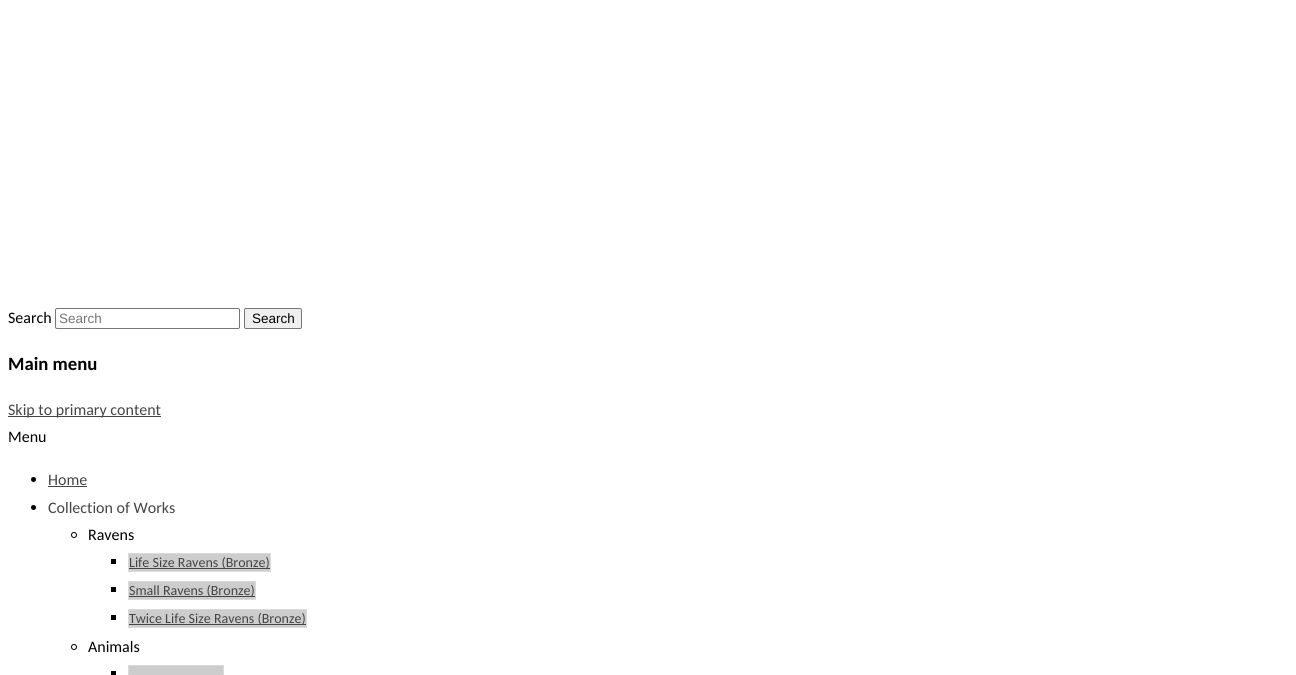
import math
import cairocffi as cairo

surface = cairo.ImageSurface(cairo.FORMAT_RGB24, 1296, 675)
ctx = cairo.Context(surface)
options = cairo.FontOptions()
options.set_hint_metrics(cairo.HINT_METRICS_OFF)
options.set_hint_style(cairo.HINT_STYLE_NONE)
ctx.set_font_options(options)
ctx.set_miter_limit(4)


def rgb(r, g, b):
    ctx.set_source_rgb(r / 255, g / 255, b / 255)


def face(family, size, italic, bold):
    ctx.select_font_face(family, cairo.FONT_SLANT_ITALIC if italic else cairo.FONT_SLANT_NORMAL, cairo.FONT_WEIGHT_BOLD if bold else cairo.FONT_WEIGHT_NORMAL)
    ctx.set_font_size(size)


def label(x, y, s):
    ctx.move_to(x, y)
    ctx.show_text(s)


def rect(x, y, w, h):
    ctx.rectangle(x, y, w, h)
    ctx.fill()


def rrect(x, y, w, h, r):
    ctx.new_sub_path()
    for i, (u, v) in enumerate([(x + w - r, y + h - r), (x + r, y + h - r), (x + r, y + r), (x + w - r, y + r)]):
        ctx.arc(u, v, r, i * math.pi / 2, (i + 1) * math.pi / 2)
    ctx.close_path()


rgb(255, 255, 255)
ctx.paint()
face('Carlito', 16, 0, 0)
rgb(0, 0, 0)
label(8, 323, 'Search')
rrect(55.5, 308.5, 184, 20, 1.5)
rgb(118, 118, 118)
ctx.set_line_width(1)
ctx.stroke()
face('Liberation Sans', 13.5, 0, 0)
rgb(117, 117, 117)
label(59, 323, 'Search')
rgb(239, 239, 239)
rrect(244.5, 308.5, 57, 20, 1.5)
ctx.fill_preserve()
rgb(118, 118, 118)
ctx.stroke()
rgb(0, 0, 0)
label(252, 323, 'Search')
face('Carlito', 18.75, 0, 1)
label(8, 370, 'Main menu')
rgb(69, 69, 69)
rect(8, 416, 153, 1)
face('Carlito', 16, 0, 0)
label(8, 415, 'Skip to primary content')
rgb(0, 0, 0)
label(8, 442, 'Menu')
ctx.new_path()
ctx.arc(33.5, 479.5, 2.5, 0, 2 * math.pi)
ctx.fill()
rgb(69, 69, 69)
label(48, 485, 'Home')
rect(48, 486, 39, 1)
rgb(0, 0, 0)
ctx.new_path()
ctx.arc(33.5, 507.5, 2.5, 0, 2 * math.pi)
ctx.fill()
rgb(69, 69, 69)
label(48, 513, 'Collection of Works')
ctx.new_path()
ctx.arc(74, 535, 2.5, 0, 2 * math.pi)
rgb(0, 0, 0)
ctx.stroke()
label(88, 540, 'Ravens')
rect(111, 559, 5, 5)
rgb(205, 205, 205)
ctx.rectangle(128.5, 553.5, 142, 18)
ctx.fill_preserve()
rgb(218, 218, 218)
ctx.stroke()
rgb(69, 69, 69)
rect(129, 568, 141, 1)
face('Carlito', 14, 0, 0)
label(129, 567, 'Life Size Ravens (Bronze)')
rgb(0, 0, 0)
rect(111, 587, 5, 5)
rgb(205, 205, 205)
ctx.rectangle(128.5, 581.5, 127, 18)
ctx.fill_preserve()
rgb(218, 218, 218)
ctx.stroke()
rgb(69, 69, 69)
rect(129, 596, 126, 1)
label(129, 595, 'Small Ravens (Bronze)')
rgb(0, 0, 0)
rect(111, 615, 5, 5)
rgb(205, 205, 205)
ctx.rectangle(128.5, 609.5, 178, 18)
ctx.fill_preserve()
rgb(218, 218, 218)
ctx.stroke()
rgb(69, 69, 69)
rect(129, 624, 177, 1)
label(129, 623, 'Twice Life Size Ravens (Bronze)')
ctx.new_path()
ctx.arc(74, 647, 2.5, 0, 2 * math.pi)
rgb(0, 0, 0)
ctx.stroke()
face('Carlito', 16, 0, 0)
label(88, 652, 'Animals')
rect(111, 671, 5, 4)
rgb(205, 205, 205)
ctx.rectangle(128.5, 665.5, 95, 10)
ctx.fill_preserve()
rgb(218, 218, 218)
ctx.stroke()
surface.write_to_png('render.png')
